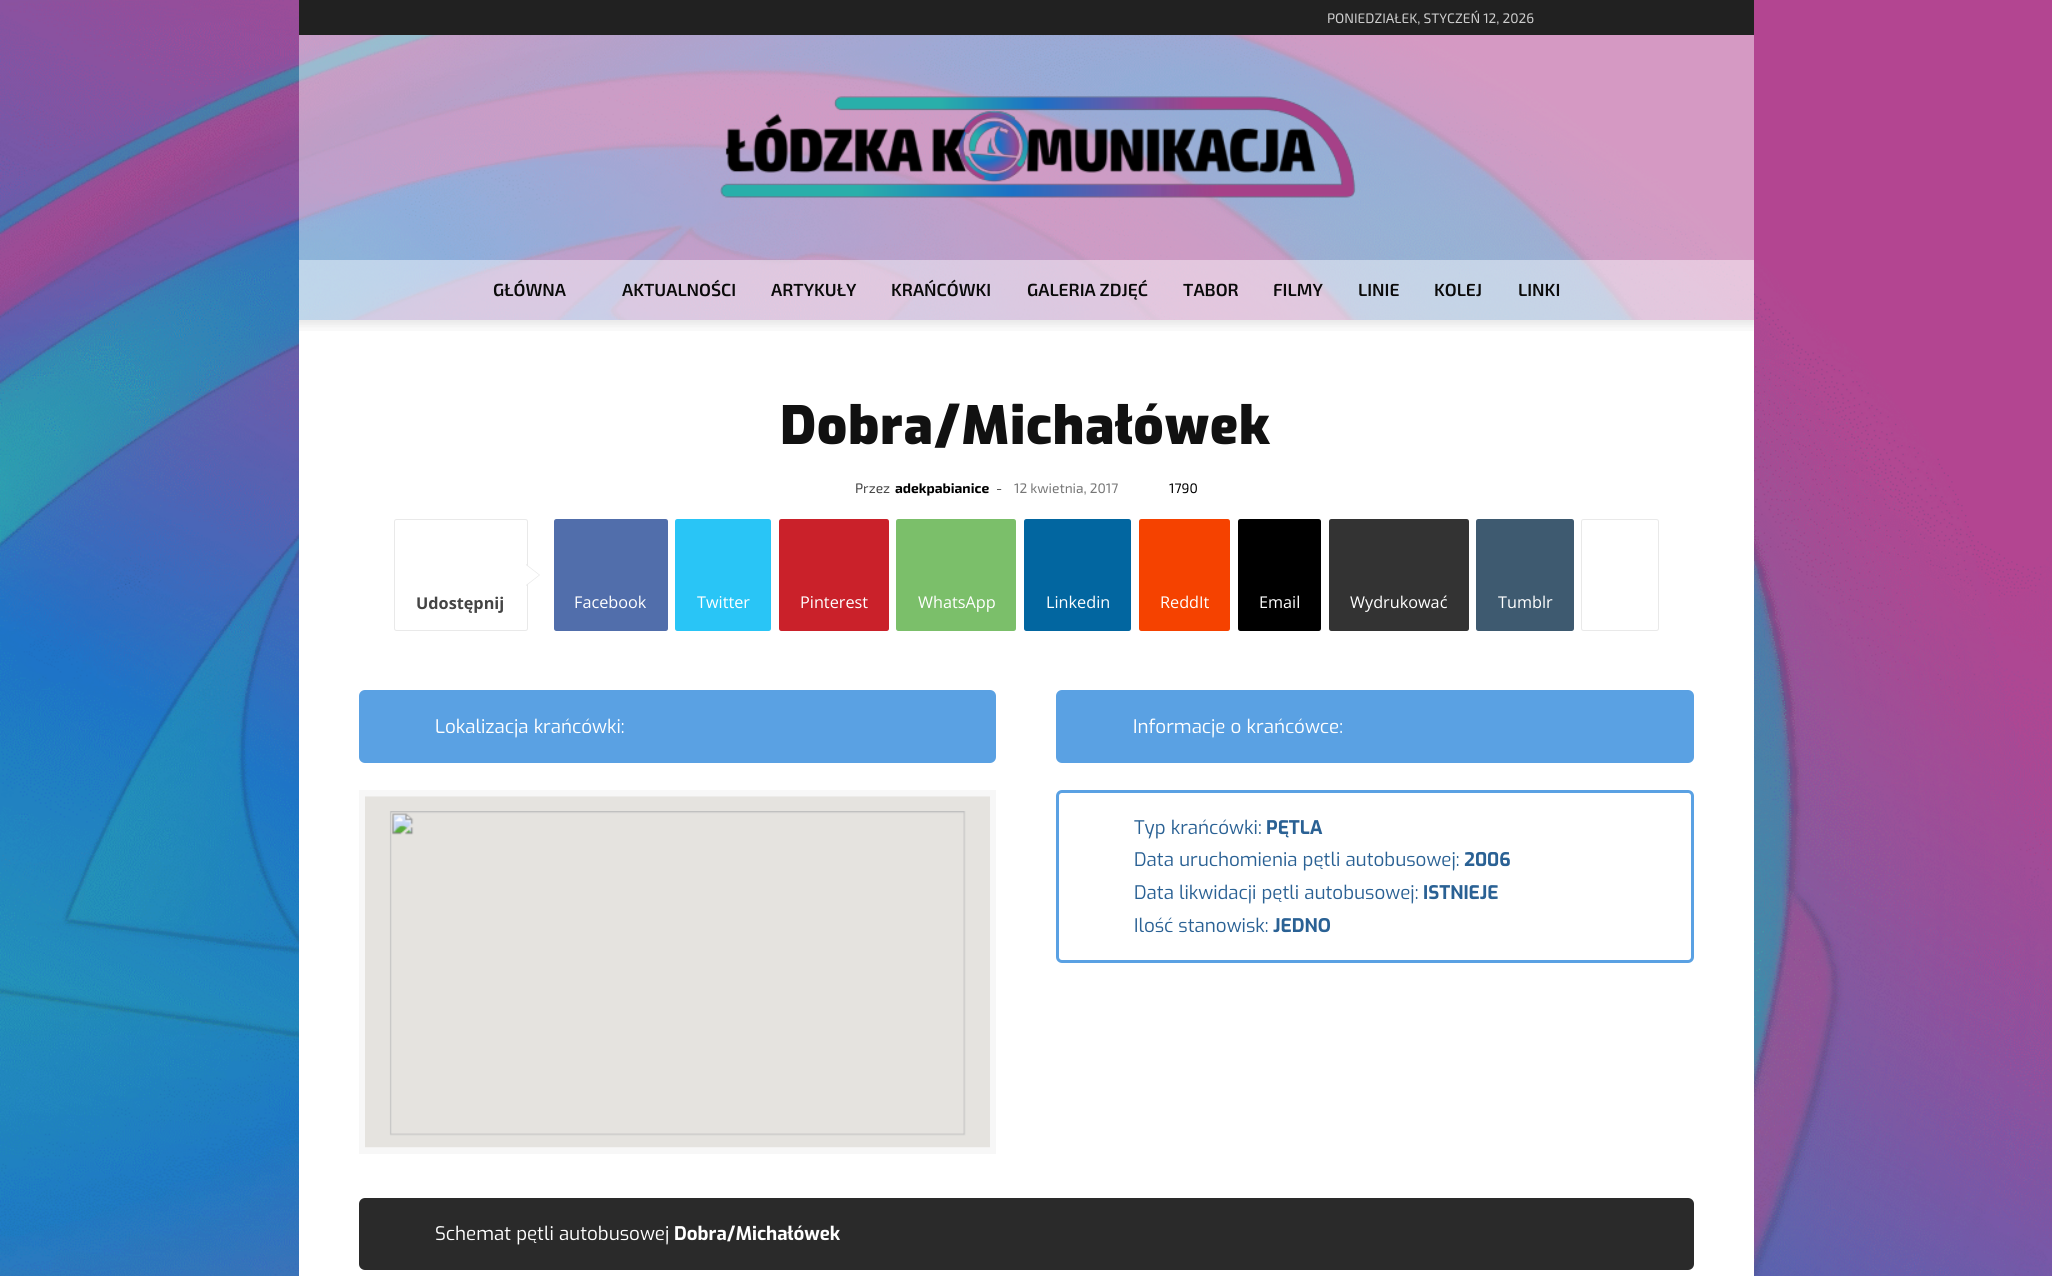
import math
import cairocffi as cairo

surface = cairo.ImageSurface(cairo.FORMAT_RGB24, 2052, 1276)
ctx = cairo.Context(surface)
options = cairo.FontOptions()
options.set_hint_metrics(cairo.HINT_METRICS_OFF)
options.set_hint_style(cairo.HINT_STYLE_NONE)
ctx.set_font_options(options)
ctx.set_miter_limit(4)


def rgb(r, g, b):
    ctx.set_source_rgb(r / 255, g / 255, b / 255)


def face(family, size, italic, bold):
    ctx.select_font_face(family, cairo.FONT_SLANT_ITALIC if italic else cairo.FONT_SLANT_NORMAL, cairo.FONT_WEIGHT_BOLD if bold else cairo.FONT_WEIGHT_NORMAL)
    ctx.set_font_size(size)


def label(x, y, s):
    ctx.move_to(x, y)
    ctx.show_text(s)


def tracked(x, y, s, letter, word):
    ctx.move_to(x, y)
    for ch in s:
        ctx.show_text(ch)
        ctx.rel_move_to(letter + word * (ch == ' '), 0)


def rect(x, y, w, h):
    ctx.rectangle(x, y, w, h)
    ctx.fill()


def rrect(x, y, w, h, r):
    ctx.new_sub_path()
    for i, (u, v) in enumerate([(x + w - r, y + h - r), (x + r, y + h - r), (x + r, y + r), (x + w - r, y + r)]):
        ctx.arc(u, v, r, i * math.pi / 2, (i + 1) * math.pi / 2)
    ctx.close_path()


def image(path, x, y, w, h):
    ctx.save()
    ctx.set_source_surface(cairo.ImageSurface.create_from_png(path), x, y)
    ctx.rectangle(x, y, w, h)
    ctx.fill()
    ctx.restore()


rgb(255, 255, 255)
ctx.paint()
image('image0.png', 0, 0, 2052, 1276)
rgb(33, 33, 33)
rect(299, 0, 1455, 35)
face('Exo 2', 13.75, 0, 0)
rgb(206, 206, 206)
label(1327, 23, 'PONIEDZIAŁEK, STYCZEŃ 12, 2026')
ctx.set_source_rgba(1, 1, 1, 0.45)
rect(299, 35, 1455, 225)
image('image1.png', 720, 96, 636, 102)
ctx.set_source_rgba(1, 1, 1, 0.69)
rect(299, 260, 1455, 60)
face('Exo 2 SemiBold', 17.5, 0, 0)
rgb(10, 10, 10)
label(493, 296, 'GŁÓWNA')
label(622, 296, 'AKTUALNOŚCI')
label(771, 296, 'ARTYKUŁY')
label(891, 296, 'KRAŃCÓWKI')
label(1027, 296, 'GALERIA ZDJĘĆ')
label(1183, 296, 'TABOR')
label(1273, 296, 'FILMY')
label(1358, 296, 'LINIE')
label(1434, 296, 'KOLEJ')
label(1518, 296, 'LINKI')
rgb(255, 255, 255)
rect(299, 320, 1455, 956)
image('image2.png', 299, 320, 1455, 11)
face('Exo Black', 52.5, 0, 0)
rgb(17, 17, 17)
tracked(780, 444, 'Dobra/Michałówek', 1, 0)
face('Exo 2', 13.75, 0, 0)
rgb(68, 68, 68)
label(855, 493, 'Przez')
face('Exo 2', 13.75, 0, 1)
rgb(0, 0, 0)
label(895, 493, 'adekpabianice')
face('Exo 2', 13.75, 0, 0)
rgb(68, 68, 68)
label(996, 493, '-')
rgb(118, 118, 118)
label(1014, 493, '12 kwietnia, 2017')
rgb(0, 0, 0)
label(1169, 493, '1790')
rrect(394.5, 519.5, 133, 111, 2)
rgb(233, 233, 233)
ctx.set_line_width(1)
ctx.stroke()
ctx.new_path()
ctx.move_to(526, 586)
ctx.line_to(526, 564)
ctx.line_to(540, 575)
ctx.close_path()
ctx.fill()
rgb(255, 255, 255)
ctx.new_path()
ctx.move_to(526, 585)
ctx.line_to(526, 565)
ctx.line_to(539, 575)
ctx.close_path()
ctx.fill()
face('Open Sans', 16.25, 0, 1)
rgb(68, 68, 68)
label(416, 609, 'Udostępnij')
rgb(81, 110, 171)
ctx.new_path()
ctx.move_to(556.5, 519)
ctx.line_to(665.5, 519)
ctx.curve_to(667, 519, 668, 520, 668, 521.5)
ctx.line_to(668, 594)
ctx.line_to(554, 594)
ctx.line_to(554, 521.5)
ctx.curve_to(554, 520, 555, 519, 556.5, 519)
ctx.close_path()
ctx.fill()
ctx.new_path()
ctx.move_to(554, 594)
ctx.line_to(668, 594)
ctx.line_to(668, 628.5)
ctx.curve_to(668, 630, 667, 631, 665.5, 631)
ctx.line_to(556.5, 631)
ctx.curve_to(555, 631, 554, 630, 554, 628.5)
ctx.close_path()
ctx.fill()
face('Open Sans', 16.25, 0, 0)
rgb(255, 255, 255)
label(574, 608, 'Facebook')
rgb(41, 197, 246)
ctx.new_path()
ctx.move_to(677.5, 519)
ctx.line_to(768.5, 519)
ctx.curve_to(770, 519, 771, 520, 771, 521.5)
ctx.line_to(771, 594)
ctx.line_to(675, 594)
ctx.line_to(675, 521.5)
ctx.curve_to(675, 520, 676, 519, 677.5, 519)
ctx.close_path()
ctx.fill()
ctx.new_path()
ctx.move_to(675, 594)
ctx.line_to(771, 594)
ctx.line_to(771, 628.5)
ctx.curve_to(771, 630, 770, 631, 768.5, 631)
ctx.line_to(677.5, 631)
ctx.curve_to(676, 631, 675, 630, 675, 628.5)
ctx.close_path()
ctx.fill()
rgb(255, 255, 255)
label(697, 608, 'Twitter')
rgb(202, 33, 42)
ctx.new_path()
ctx.move_to(781.5, 519)
ctx.line_to(886.5, 519)
ctx.curve_to(888, 519, 889, 520, 889, 521.5)
ctx.line_to(889, 594)
ctx.line_to(779, 594)
ctx.line_to(779, 521.5)
ctx.curve_to(779, 520, 780, 519, 781.5, 519)
ctx.close_path()
ctx.fill()
ctx.new_path()
ctx.move_to(779, 594)
ctx.line_to(889, 594)
ctx.line_to(889, 628.5)
ctx.curve_to(889, 630, 888, 631, 886.5, 631)
ctx.line_to(781.5, 631)
ctx.curve_to(780, 631, 779, 630, 779, 628.5)
ctx.close_path()
ctx.fill()
rgb(255, 255, 255)
label(800, 608, 'Pinterest')
rgb(123, 191, 106)
ctx.new_path()
ctx.move_to(898.5, 519)
ctx.line_to(1013.5, 519)
ctx.curve_to(1015, 519, 1016, 520, 1016, 521.5)
ctx.line_to(1016, 594)
ctx.line_to(896, 594)
ctx.line_to(896, 521.5)
ctx.curve_to(896, 520, 897, 519, 898.5, 519)
ctx.close_path()
ctx.fill()
ctx.new_path()
ctx.move_to(896, 594)
ctx.line_to(1016, 594)
ctx.line_to(1016, 628.5)
ctx.curve_to(1016, 630, 1015, 631, 1013.5, 631)
ctx.line_to(898.5, 631)
ctx.curve_to(897, 631, 896, 630, 896, 628.5)
ctx.close_path()
ctx.fill()
rgb(255, 255, 255)
label(918, 608, 'WhatsApp')
rgb(2, 102, 160)
ctx.new_path()
ctx.move_to(1026.5, 519)
ctx.line_to(1128.5, 519)
ctx.curve_to(1130, 519, 1131, 520, 1131, 521.5)
ctx.line_to(1131, 594)
ctx.line_to(1024, 594)
ctx.line_to(1024, 521.5)
ctx.curve_to(1024, 520, 1025, 519, 1026.5, 519)
ctx.close_path()
ctx.fill()
ctx.new_path()
ctx.move_to(1024, 594)
ctx.line_to(1131, 594)
ctx.line_to(1131, 628.5)
ctx.curve_to(1131, 630, 1130, 631, 1128.5, 631)
ctx.line_to(1026.5, 631)
ctx.curve_to(1025, 631, 1024, 630, 1024, 628.5)
ctx.close_path()
ctx.fill()
rgb(255, 255, 255)
label(1046, 608, 'Linkedin')
rgb(245, 66, 0)
ctx.new_path()
ctx.move_to(1141.5, 519)
ctx.line_to(1227.5, 519)
ctx.curve_to(1229, 519, 1230, 520, 1230, 521.5)
ctx.line_to(1230, 594)
ctx.line_to(1139, 594)
ctx.line_to(1139, 521.5)
ctx.curve_to(1139, 520, 1140, 519, 1141.5, 519)
ctx.close_path()
ctx.fill()
ctx.new_path()
ctx.move_to(1139, 594)
ctx.line_to(1230, 594)
ctx.line_to(1230, 628.5)
ctx.curve_to(1230, 630, 1229, 631, 1227.5, 631)
ctx.line_to(1141.5, 631)
ctx.curve_to(1140, 631, 1139, 630, 1139, 628.5)
ctx.close_path()
ctx.fill()
rgb(255, 255, 255)
label(1160, 608, 'ReddIt')
rgb(0, 0, 0)
ctx.new_path()
ctx.move_to(1240.5, 519)
ctx.line_to(1318.5, 519)
ctx.curve_to(1320, 519, 1321, 520, 1321, 521.5)
ctx.line_to(1321, 594)
ctx.line_to(1238, 594)
ctx.line_to(1238, 521.5)
ctx.curve_to(1238, 520, 1239, 519, 1240.5, 519)
ctx.close_path()
ctx.fill()
ctx.new_path()
ctx.move_to(1238, 594)
ctx.line_to(1321, 594)
ctx.line_to(1321, 628.5)
ctx.curve_to(1321, 630, 1320, 631, 1318.5, 631)
ctx.line_to(1240.5, 631)
ctx.curve_to(1239, 631, 1238, 630, 1238, 628.5)
ctx.close_path()
ctx.fill()
rgb(255, 255, 255)
label(1259, 608, 'Email')
rgb(51, 51, 51)
ctx.new_path()
ctx.move_to(1331.5, 519)
ctx.line_to(1466.5, 519)
ctx.curve_to(1468, 519, 1469, 520, 1469, 521.5)
ctx.line_to(1469, 594)
ctx.line_to(1329, 594)
ctx.line_to(1329, 521.5)
ctx.curve_to(1329, 520, 1330, 519, 1331.5, 519)
ctx.close_path()
ctx.fill()
ctx.new_path()
ctx.move_to(1329, 594)
ctx.line_to(1469, 594)
ctx.line_to(1469, 628.5)
ctx.curve_to(1469, 630, 1468, 631, 1466.5, 631)
ctx.line_to(1331.5, 631)
ctx.curve_to(1330, 631, 1329, 630, 1329, 628.5)
ctx.close_path()
ctx.fill()
rgb(255, 255, 255)
label(1350, 608, 'Wydrukować')
rgb(62, 90, 112)
ctx.new_path()
ctx.move_to(1478.5, 519)
ctx.line_to(1571.5, 519)
ctx.curve_to(1573, 519, 1574, 520, 1574, 521.5)
ctx.line_to(1574, 594)
ctx.line_to(1476, 594)
ctx.line_to(1476, 521.5)
ctx.curve_to(1476, 520, 1477, 519, 1478.5, 519)
ctx.close_path()
ctx.fill()
ctx.new_path()
ctx.move_to(1476, 594)
ctx.line_to(1574, 594)
ctx.line_to(1574, 628.5)
ctx.curve_to(1574, 630, 1573, 631, 1571.5, 631)
ctx.line_to(1478.5, 631)
ctx.curve_to(1477, 631, 1476, 630, 1476, 628.5)
ctx.close_path()
ctx.fill()
rgb(255, 255, 255)
label(1498, 608, 'Tumblr')
rrect(1581.5, 519.5, 77, 111, 2)
rgb(233, 233, 233)
ctx.stroke()
rgb(90, 161, 227)
rrect(359, 690, 637, 73, 6)
ctx.fill()
face('Exo', 18.75, 0, 0)
rgb(255, 255, 255)
label(435, 733, 'Lokalizacja krańcówki:')
rgb(247, 247, 247)
rect(359, 790, 637, 364)
image('image3.png', 365, 796, 625, 352)
rgb(90, 161, 227)
rrect(1056, 690, 638, 73, 6)
ctx.fill()
rgb(255, 255, 255)
label(1133, 733, 'Informacje o krańcówce:')
rrect(1057.5, 791.5, 635, 170, 4.5)
rgb(90, 161, 227)
ctx.set_line_width(3)
ctx.stroke()
rgb(42, 97, 148)
label(1134, 834, 'Typ krańcówki:')
face('Exo', 18.75, 0, 1)
label(1266, 834, 'PĘTLA')
face('Exo', 18.75, 0, 0)
label(1134, 866, 'Data uruchomienia pętli autobusowej:')
face('Exo', 18.75, 0, 1)
label(1464, 866, '2006')
face('Exo', 18.75, 0, 0)
label(1134, 899, 'Data likwidacji pętli autobusowej:')
face('Exo', 18.75, 0, 1)
label(1423, 899, 'ISTNIEJE')
face('Exo', 18.75, 0, 0)
label(1134, 932, 'Ilość stanowisk:')
face('Exo', 18.75, 0, 1)
label(1273, 932, 'JEDNO')
rgb(42, 42, 42)
rrect(359, 1198, 1335, 72, 6)
ctx.fill()
face('Exo', 18.75, 0, 0)
rgb(255, 255, 255)
label(435, 1240, 'Schemat pętli autobusowej')
face('Exo', 18.75, 0, 1)
label(674, 1240, 'Dobra/Michałówek')
surface.write_to_png('render.png')
